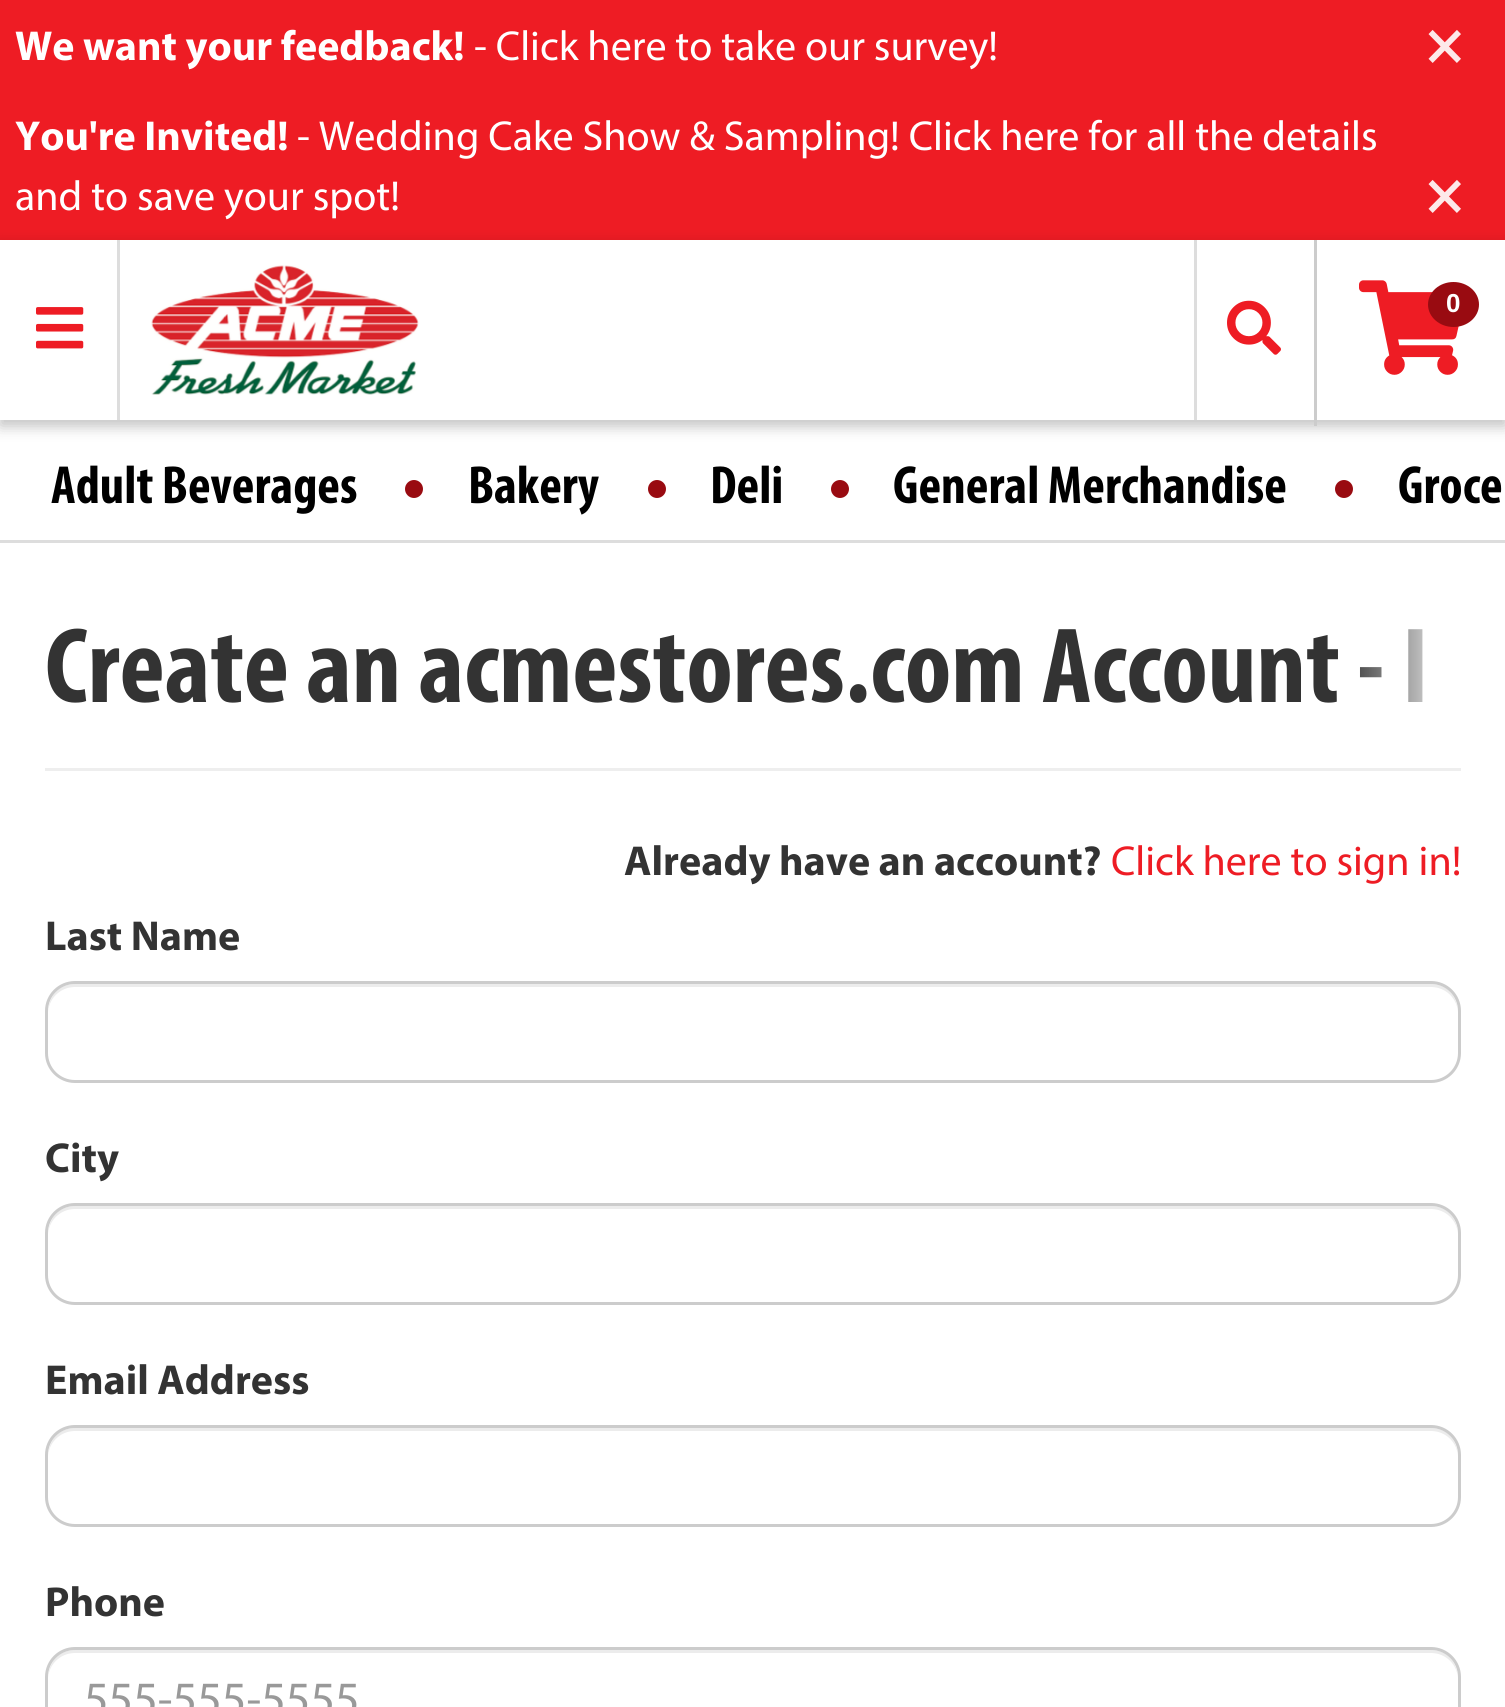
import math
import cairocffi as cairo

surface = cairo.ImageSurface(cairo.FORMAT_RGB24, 1505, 1707)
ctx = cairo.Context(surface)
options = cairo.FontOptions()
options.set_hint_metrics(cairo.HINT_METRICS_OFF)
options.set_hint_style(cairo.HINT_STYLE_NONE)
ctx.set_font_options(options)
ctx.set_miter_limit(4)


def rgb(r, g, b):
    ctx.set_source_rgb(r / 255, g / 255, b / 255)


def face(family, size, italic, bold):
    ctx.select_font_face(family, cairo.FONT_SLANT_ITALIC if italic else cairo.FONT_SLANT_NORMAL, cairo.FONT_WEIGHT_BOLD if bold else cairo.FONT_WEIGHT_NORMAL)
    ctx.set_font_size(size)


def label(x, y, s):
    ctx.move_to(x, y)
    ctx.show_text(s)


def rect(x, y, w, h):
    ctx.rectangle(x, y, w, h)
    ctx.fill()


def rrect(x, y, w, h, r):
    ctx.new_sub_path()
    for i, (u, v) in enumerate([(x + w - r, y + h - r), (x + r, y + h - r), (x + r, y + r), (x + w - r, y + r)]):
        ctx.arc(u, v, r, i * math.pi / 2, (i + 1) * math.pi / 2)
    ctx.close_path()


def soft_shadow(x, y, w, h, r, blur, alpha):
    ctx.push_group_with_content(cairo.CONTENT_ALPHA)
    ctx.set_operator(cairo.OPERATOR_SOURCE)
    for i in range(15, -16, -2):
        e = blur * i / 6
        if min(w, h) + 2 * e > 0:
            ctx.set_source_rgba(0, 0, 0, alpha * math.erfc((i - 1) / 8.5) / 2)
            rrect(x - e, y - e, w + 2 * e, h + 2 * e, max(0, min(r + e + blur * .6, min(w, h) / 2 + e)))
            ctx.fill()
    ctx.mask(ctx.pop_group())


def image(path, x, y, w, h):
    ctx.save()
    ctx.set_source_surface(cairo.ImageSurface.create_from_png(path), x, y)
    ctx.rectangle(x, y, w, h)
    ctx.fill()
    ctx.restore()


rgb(255, 255, 255)
ctx.paint()
rgb(238, 28, 36)
rect(0, 0, 1505, 240)
face('Myriad', 42, 0, 1)
rgb(255, 255, 255)
label(15, 60, 'We want your feedback!')
face('Myriad', 42, 0, 0)
label(474, 60, '- Click here to take our survey!')
face('Myriad', 63, 0, 1)
rgb(253, 232, 233)
label(1426, 63, '×')
face('Myriad', 42, 0, 1)
rgb(255, 255, 255)
label(15, 150, 'You\'re Invited!')
face('Myriad', 42, 0, 0)
label(297, 150, '- Wedding Cake Show & Sampling! Click here for all the details')
label(15, 210, 'and to save your spot!')
face('Myriad', 63, 0, 1)
rgb(253, 232, 233)
label(1426, 213, '×')
ctx.save()
ctx.set_fill_rule(cairo.FILL_RULE_EVEN_ODD)
ctx.new_path()
ctx.move_to(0, 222)
ctx.line_to(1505, 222)
ctx.line_to(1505, 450)
ctx.line_to(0, 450)
ctx.close_path()
ctx.move_to(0, 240)
ctx.line_to(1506, 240)
ctx.line_to(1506, 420)
ctx.line_to(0, 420)
ctx.close_path()
ctx.clip()
rgb(0, 0, 0)
soft_shadow(0, 246, 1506, 180, 0, 7.5, 0.25)
ctx.restore()
rgb(221, 221, 221)
rect(117, 240, 3, 180)
image('image0.png', 36, 307, 48, 42)
image('image1.png', 151, 265, 268, 130)
rect(1194, 240, 3, 180)
image('image2.png', 1227, 300, 54, 55)
rgb(204, 204, 204)
rect(1314, 240, 3, 186)
image('image3.png', 1359, 280, 100, 95)
rgb(153, 11, 17)
ctx.new_path()
ctx.move_to(1453.5, 282)
ctx.curve_to(1467.5, 282, 1479, 292, 1479, 304.5)
ctx.curve_to(1479, 317, 1467.5, 327, 1453.5, 327)
ctx.curve_to(1439.5, 327, 1428, 317, 1428, 304.5)
ctx.curve_to(1428, 292, 1439.5, 282, 1453.5, 282)
ctx.close_path()
ctx.fill()
face('Liberation Sans', 26, 0, 1)
rgb(255, 255, 255)
label(1446, 312, '0')
face('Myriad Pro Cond', 54, 0, 1)
rgb(0, 0, 0)
label(51, 503, 'Adult Beverages')
rgb(153, 11, 17)
ctx.new_path()
ctx.arc(414, 489, 9, 0, 2 * math.pi)
ctx.fill()
rgb(0, 0, 0)
label(468, 503, 'Bakery')
rgb(153, 11, 17)
ctx.new_path()
ctx.arc(657, 489, 9, 0, 2 * math.pi)
ctx.fill()
rgb(0, 0, 0)
label(710, 503, 'Deli')
rgb(153, 11, 17)
ctx.new_path()
ctx.arc(840, 489, 9, 0, 2 * math.pi)
ctx.fill()
rgb(0, 0, 0)
label(893, 503, 'General Merchandise')
rgb(153, 11, 17)
ctx.new_path()
ctx.arc(1344, 489, 9, 0, 2 * math.pi)
ctx.fill()
rgb(0, 0, 0)
label(1398, 503, 'Groce')
rgb(221, 221, 221)
rect(0, 540, 1505, 3)
face('Myriad Pro Cond', 108, 0, 1)
rgb(51, 51, 51)
label(45, 702, 'Create an acmestores.com Account - I')
gradient = cairo.LinearGradient(1341, 663, 1461, 663)
gradient.add_color_stop_rgba(0, 1, 1, 1, 0)
gradient.add_color_stop_rgba(1, 1, 1, 1, 1)
ctx.set_source(gradient)
rect(1360, 629, 63, 73)
rgb(238, 238, 238)
rect(45, 768, 1416, 3)
face('Myriad', 42, 0, 1)
rgb(51, 51, 51)
label(624, 875, 'Already have an account?')
face('Myriad', 42, 0, 0)
rgb(238, 28, 36)
label(1111, 875, 'Click here to sign in!')
face('Myriad', 42, 0, 1)
rgb(51, 51, 51)
label(45, 950, 'Last Name')
rgb(236, 236, 236)
ctx.new_path()
ctx.move_to(75, 987)
ctx.line_to(1431, 987)
ctx.curve_to(1446, 987, 1458, 999, 1458, 1014)
ctx.curve_to(1458, 998, 1449, 984, 1431, 984)
ctx.line_to(75, 984)
ctx.curve_to(57, 984, 48, 998, 48, 1014)
ctx.curve_to(48, 999, 60, 987, 75, 987)
ctx.close_path()
ctx.fill()
rrect(46.5, 982.5, 1413, 99, 28.5)
rgb(204, 204, 204)
ctx.set_line_width(3)
ctx.stroke()
rgb(51, 51, 51)
label(45, 1172, 'City')
rgb(236, 236, 236)
ctx.new_path()
ctx.move_to(75, 1209)
ctx.line_to(1431, 1209)
ctx.curve_to(1446, 1209, 1458, 1221, 1458, 1236)
ctx.curve_to(1458, 1220, 1449, 1206, 1431, 1206)
ctx.line_to(75, 1206)
ctx.curve_to(57, 1206, 48, 1220, 48, 1236)
ctx.curve_to(48, 1221, 60, 1209, 75, 1209)
ctx.close_path()
ctx.fill()
rrect(46.5, 1204.5, 1413, 99, 28.5)
rgb(204, 204, 204)
ctx.stroke()
rgb(51, 51, 51)
label(45, 1394, 'Email Address')
rgb(236, 236, 236)
ctx.new_path()
ctx.move_to(75, 1431)
ctx.line_to(1431, 1431)
ctx.curve_to(1446, 1431, 1458, 1443, 1458, 1458)
ctx.curve_to(1458, 1442, 1449, 1428, 1431, 1428)
ctx.line_to(75, 1428)
ctx.curve_to(57, 1428, 48, 1442, 48, 1458)
ctx.curve_to(48, 1443, 60, 1431, 75, 1431)
ctx.close_path()
ctx.fill()
rrect(46.5, 1426.5, 1413, 99, 28.5)
rgb(204, 204, 204)
ctx.stroke()
rgb(51, 51, 51)
label(45, 1616, 'Phone')
rgb(236, 236, 236)
ctx.new_path()
ctx.move_to(75, 1653)
ctx.line_to(1431, 1653)
ctx.curve_to(1446, 1653, 1458, 1665, 1458, 1680)
ctx.curve_to(1458, 1664, 1449, 1650, 1431, 1650)
ctx.line_to(75, 1650)
ctx.curve_to(57, 1650, 48, 1664, 48, 1680)
ctx.curve_to(48, 1665, 60, 1653, 75, 1653)
ctx.close_path()
ctx.fill()
rrect(46.5, 1648.5, 1413, 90, 28.5)
rgb(204, 204, 204)
ctx.stroke()
face('Myriad', 48, 0, 0)
rgb(153, 153, 153)
label(84, 1715, '555-555-5555')
surface.write_to_png('render.png')
